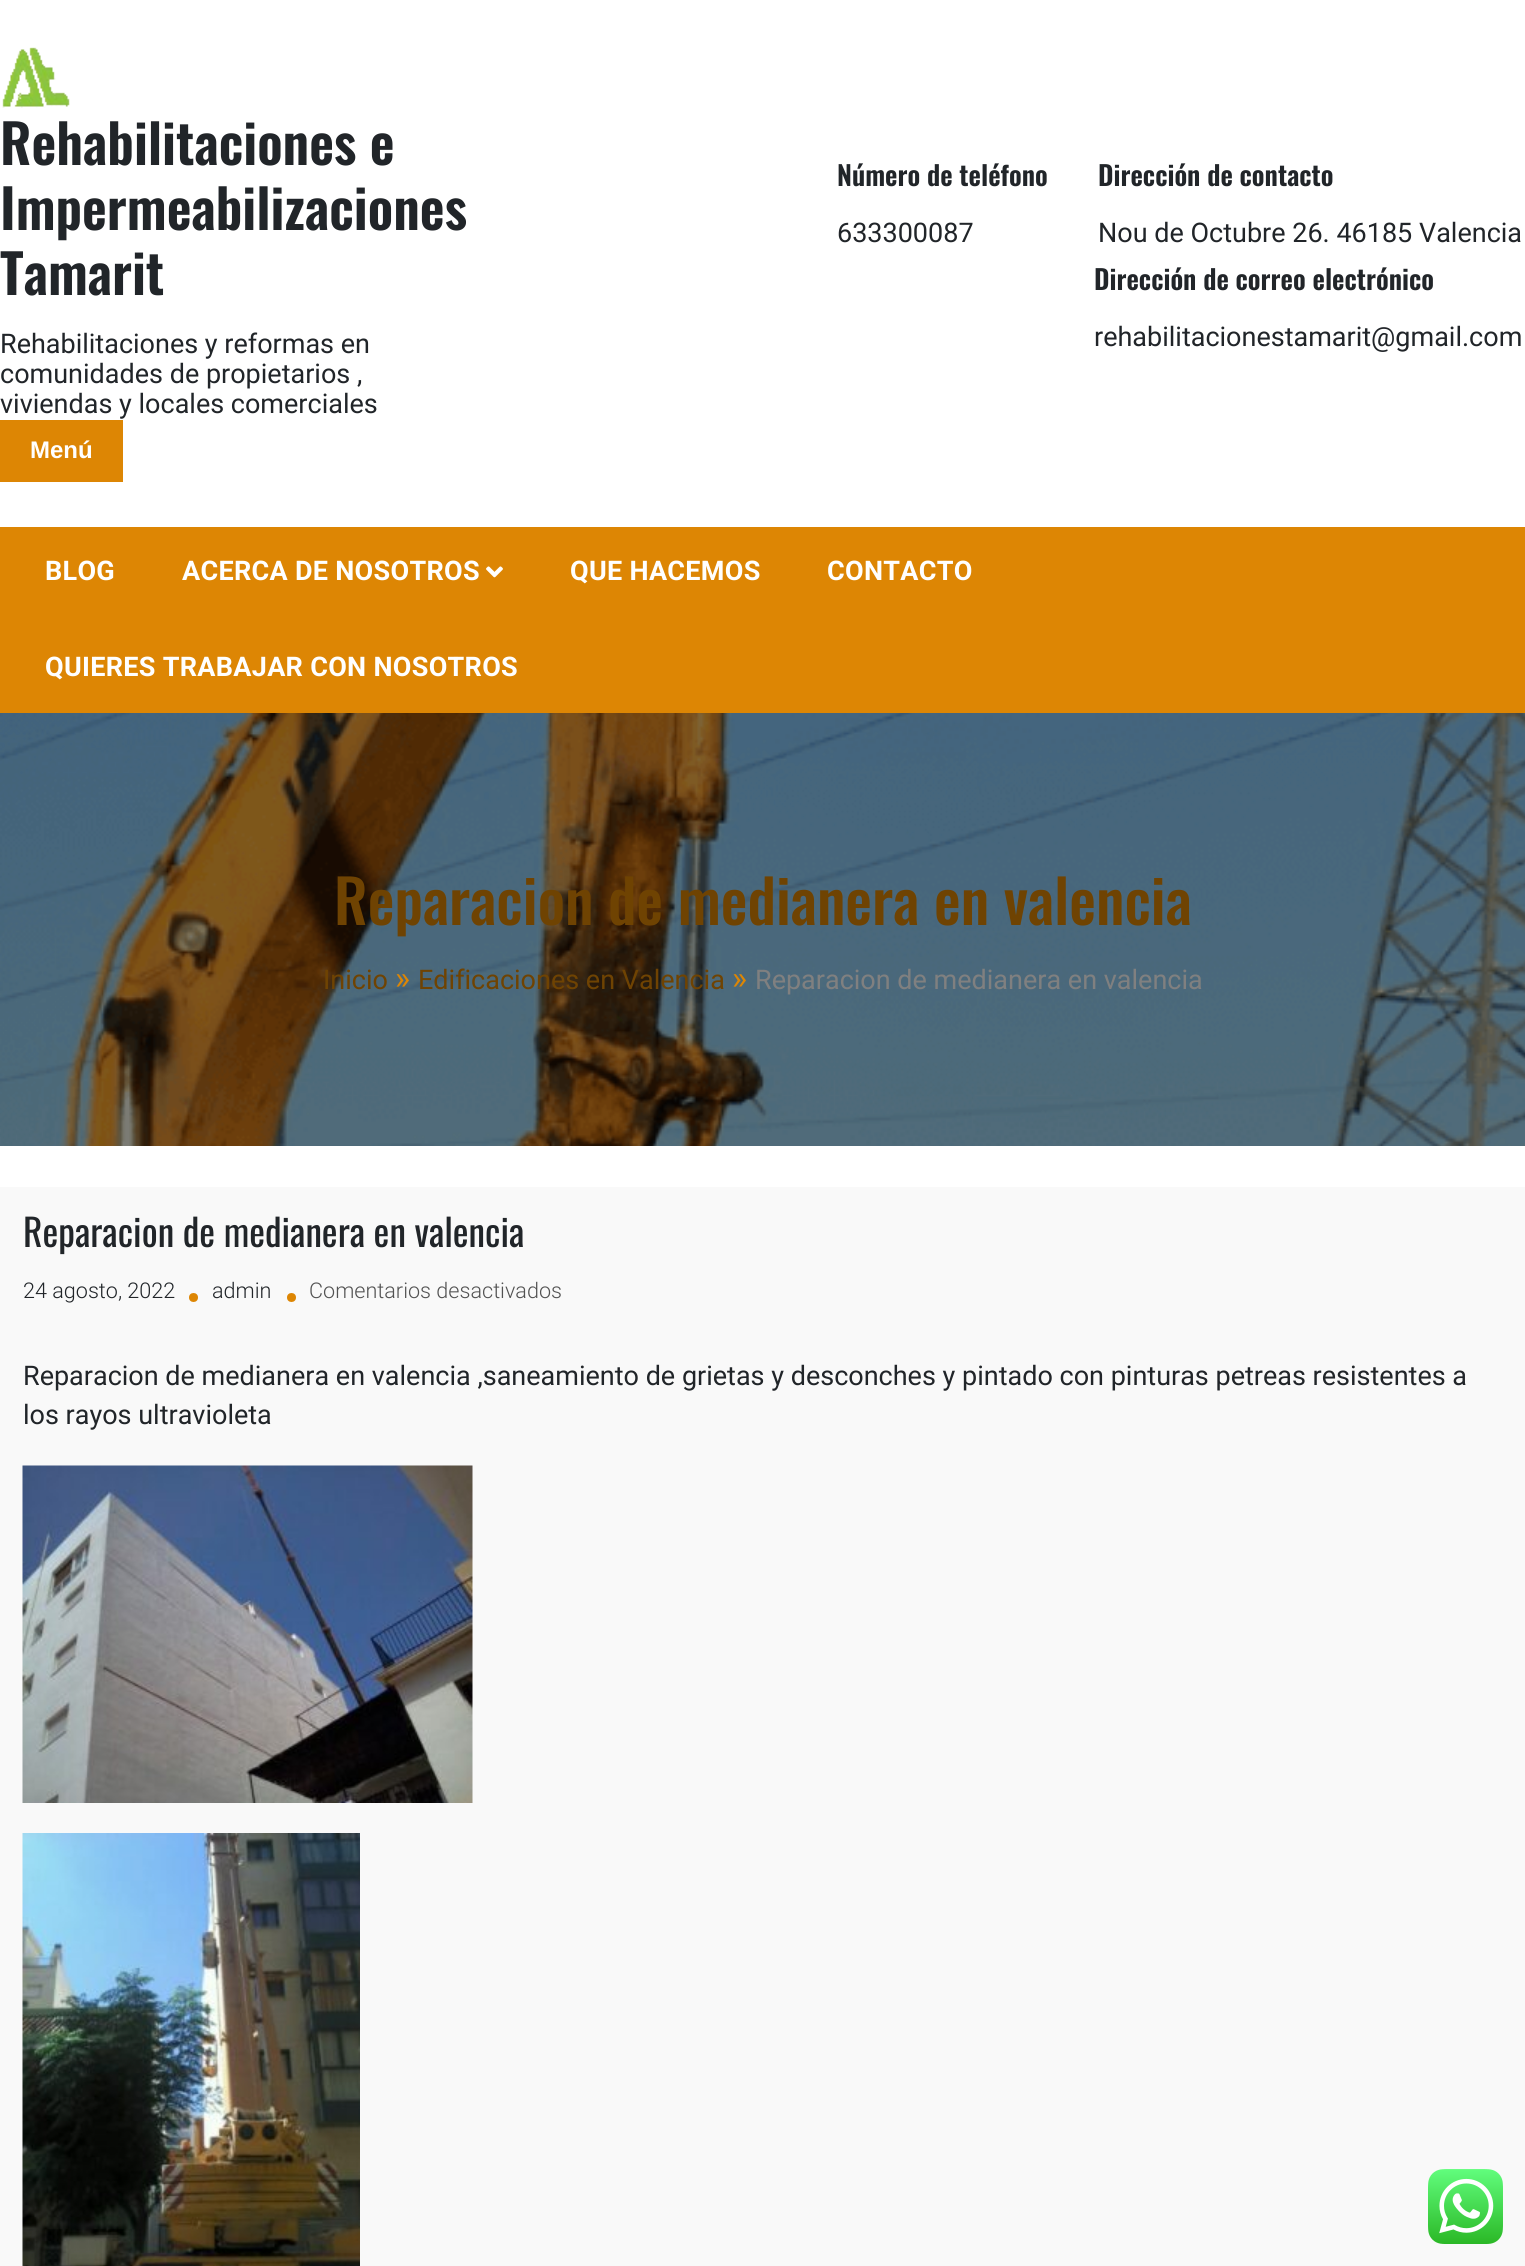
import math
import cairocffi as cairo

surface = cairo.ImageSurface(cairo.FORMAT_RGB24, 1525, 2266)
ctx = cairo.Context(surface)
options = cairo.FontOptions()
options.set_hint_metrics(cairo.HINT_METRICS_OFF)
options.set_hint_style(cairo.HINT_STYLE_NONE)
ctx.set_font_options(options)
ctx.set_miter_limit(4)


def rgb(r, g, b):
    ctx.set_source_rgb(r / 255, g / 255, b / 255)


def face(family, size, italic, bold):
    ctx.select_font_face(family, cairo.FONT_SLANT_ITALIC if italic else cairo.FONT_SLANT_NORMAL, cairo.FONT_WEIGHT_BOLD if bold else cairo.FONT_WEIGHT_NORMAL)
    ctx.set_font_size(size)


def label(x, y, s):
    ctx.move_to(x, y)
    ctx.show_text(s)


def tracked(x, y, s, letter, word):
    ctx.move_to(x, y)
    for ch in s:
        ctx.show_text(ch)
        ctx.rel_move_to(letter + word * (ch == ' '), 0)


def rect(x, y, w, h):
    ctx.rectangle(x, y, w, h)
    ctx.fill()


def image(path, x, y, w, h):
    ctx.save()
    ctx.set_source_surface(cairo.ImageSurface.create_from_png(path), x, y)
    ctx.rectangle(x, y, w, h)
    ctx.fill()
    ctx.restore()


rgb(255, 255, 255)
ctx.paint()
image('image0.png', 2, 47, 68, 61)
face('Oswald SemiBold', 54, 0, 0)
rgb(33, 37, 41)
label(0, 165, 'Rehabilitaciones e')
label(0, 230, 'Impermeabilizaciones')
label(0, 295, 'Tamarit')
face('Roboto', 27, 0, 0)
label(0, 353, 'Rehabilitaciones y reformas en')
label(0, 383, 'comunidades de propietarios ,')
label(0, 413, 'viviendas y locales comerciales')
rgb(221, 134, 4)
rect(0, 420, 123, 62)
face('Liberation Sans', 24, 0, 1)
rgb(255, 255, 255)
label(30, 458, 'Menú')
face('Oswald SemiBold', 27, 0, 0)
rgb(33, 37, 41)
label(837, 186, 'Número de teléfono')
face('Roboto', 27, 0, 0)
label(837, 242, '633300087')
face('Oswald SemiBold', 27, 0, 0)
label(1098, 186, 'Dirección de contacto')
face('Roboto', 27, 0, 0)
label(1098, 242, 'Nou de Octubre 26. 46185 Valencia')
face('Oswald SemiBold', 27, 0, 0)
label(1094, 290, 'Dirección de correo electrónico')
face('Roboto', 27, 0, 0)
label(1094, 346, 'rehabilitacionestamarit@gmail.com')
rgb(221, 134, 4)
rect(0, 527, 1525, 186)
face('Roboto', 27, 0, 1)
rgb(255, 255, 255)
tracked(45, 580, 'BLOG', 0.3, 0)
tracked(182, 580, 'ACERCA DE NOSOTROS', 0.3, 0)
image('image1.png', 486, 566, 17, 12)
tracked(570, 580, 'QUE HACEMOS', 0.3, 0)
tracked(827, 580, 'CONTACTO', 0.3, 0)
tracked(45, 676, 'QUIERES TRABAJAR CON NOSOTROS', 0.3, 0)
image('image2.png', 0, 713, 1525, 433)
face('Oswald Medium', 60, 0, 0)
rgb(111, 67, 2)
label(334, 925, 'Reparacion de medianera en valencia')
face('Roboto', 27, 0, 0)
label(323, 989, 'Inicio')
face('Roboto', 32, 0, 0)
rgb(221, 134, 4)
label(395, 989, '»')
face('Roboto', 27, 0, 0)
rgb(111, 67, 2)
label(418, 989, 'Edificaciones en Valencia')
face('Roboto', 32, 0, 0)
rgb(221, 134, 4)
label(732, 989, '»')
face('Roboto', 27, 0, 0)
rgb(128, 128, 128)
label(755, 989, 'Reparacion de medianera en valencia')
rgb(249, 249, 249)
rect(0, 1187, 1525, 1079)
face('Oswald', 37.5, 0, 0)
rgb(33, 37, 41)
label(23, 1247, 'Reparacion de medianera en valencia')
face('Roboto Light', 21.6, 0, 0)
label(23, 1298, '24 agosto, 2022')
rgb(221, 134, 4)
ctx.new_path()
ctx.arc(193.5, 1297.5, 4.5, 0, 2 * math.pi)
ctx.fill()
rgb(33, 37, 41)
label(212, 1298, 'admin')
rgb(221, 134, 4)
ctx.new_path()
ctx.arc(291.5, 1297.5, 4.5, 0, 2 * math.pi)
ctx.fill()
rgb(82, 82, 82)
label(309, 1298, 'Comentarios desactivados')
face('Roboto', 27, 0, 0)
rgb(33, 37, 41)
label(23, 1385, 'Reparacion de medianera en valencia ,saneamiento de grietas y desconches y pintado con pinturas petreas resistentes a')
label(23, 1424, 'los rayos ultravioleta')
image('image3.png', 22, 1465, 451, 338)
image('image4.png', 22, 1833, 338, 433)
image('image5.png', 1428, 2169, 75, 75)
surface.write_to_png('render.png')
